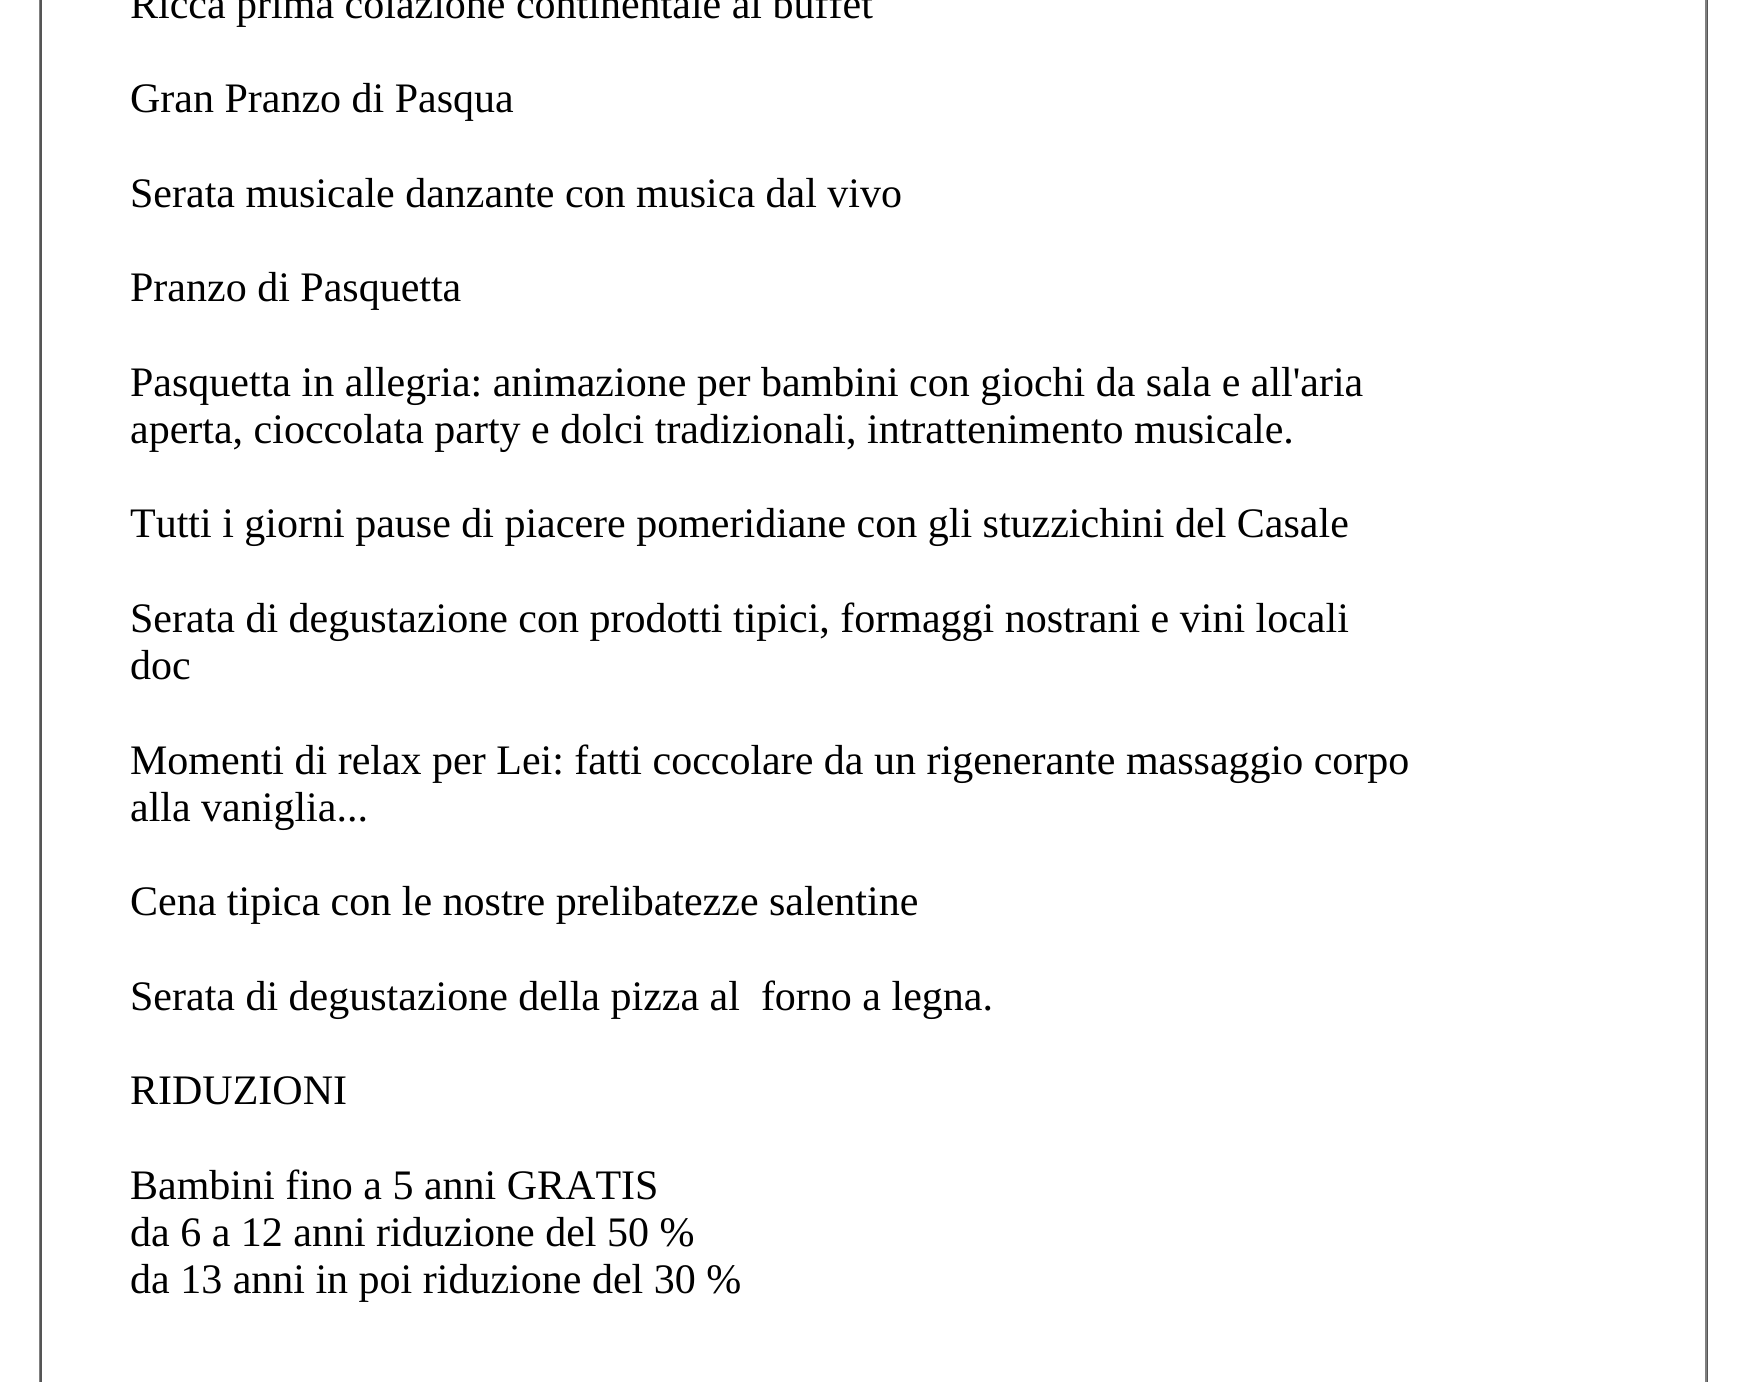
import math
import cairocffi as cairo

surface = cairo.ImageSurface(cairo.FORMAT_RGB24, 1745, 1382)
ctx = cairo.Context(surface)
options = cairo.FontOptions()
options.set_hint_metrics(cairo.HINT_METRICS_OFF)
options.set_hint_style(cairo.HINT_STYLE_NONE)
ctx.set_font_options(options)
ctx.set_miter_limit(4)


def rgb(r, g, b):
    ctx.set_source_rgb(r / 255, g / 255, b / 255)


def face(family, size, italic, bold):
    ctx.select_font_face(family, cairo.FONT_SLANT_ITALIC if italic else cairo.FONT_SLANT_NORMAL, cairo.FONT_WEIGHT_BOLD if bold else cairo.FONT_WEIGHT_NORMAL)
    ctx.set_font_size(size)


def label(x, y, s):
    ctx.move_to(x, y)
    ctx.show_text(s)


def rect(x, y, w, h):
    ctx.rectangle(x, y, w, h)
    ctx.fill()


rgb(255, 255, 255)
ctx.paint()
rgb(85, 85, 85)
rect(1707, 0, 1, 1382)
rgb(128, 128, 128)
rect(39, 0, 1, 1382)
rect(1705, 0, 2, 1382)
rgb(85, 85, 85)
rect(40, 0, 2, 1382)
face('Liberation Serif', 42, 0, 0)
rgb(0, 0, 0)
label(130, 18, 'Ricca prima colazione continentale al buffet')
label(130, 112, 'Gran Pranzo di Pasqua')
label(130, 207, 'Serata musicale danzante con musica dal vivo')
label(130, 301, 'Pranzo di Pasquetta')
label(130, 396, 'Pasquetta in allegria: animazione per bambini con giochi da sala e all\'aria')
label(130, 443, 'aperta, cioccolata party e dolci tradizionali, intrattenimento musicale.')
label(130, 537, 'Tutti i giorni pause di piacere pomeridiane con gli stuzzichini del Casale')
label(130, 632, 'Serata di degustazione con prodotti tipici, formaggi nostrani e vini locali')
label(130, 679, 'doc')
label(130, 774, 'Momenti di relax per Lei: fatti coccolare da un rigenerante massaggio corpo')
label(130, 821, 'alla vaniglia...')
label(130, 915, 'Cena tipica con le nostre prelibatezze salentine')
label(130, 1010, 'Serata di degustazione della pizza al  forno a legna.')
label(130, 1104, 'RIDUZIONI')
label(130, 1199, 'Bambini fino a 5 anni GRATIS')
label(130, 1246, 'da 6 a 12 anni riduzione del 50 %')
label(130, 1293, 'da 13 anni in poi riduzione del 30 %')
surface.write_to_png('render.png')
